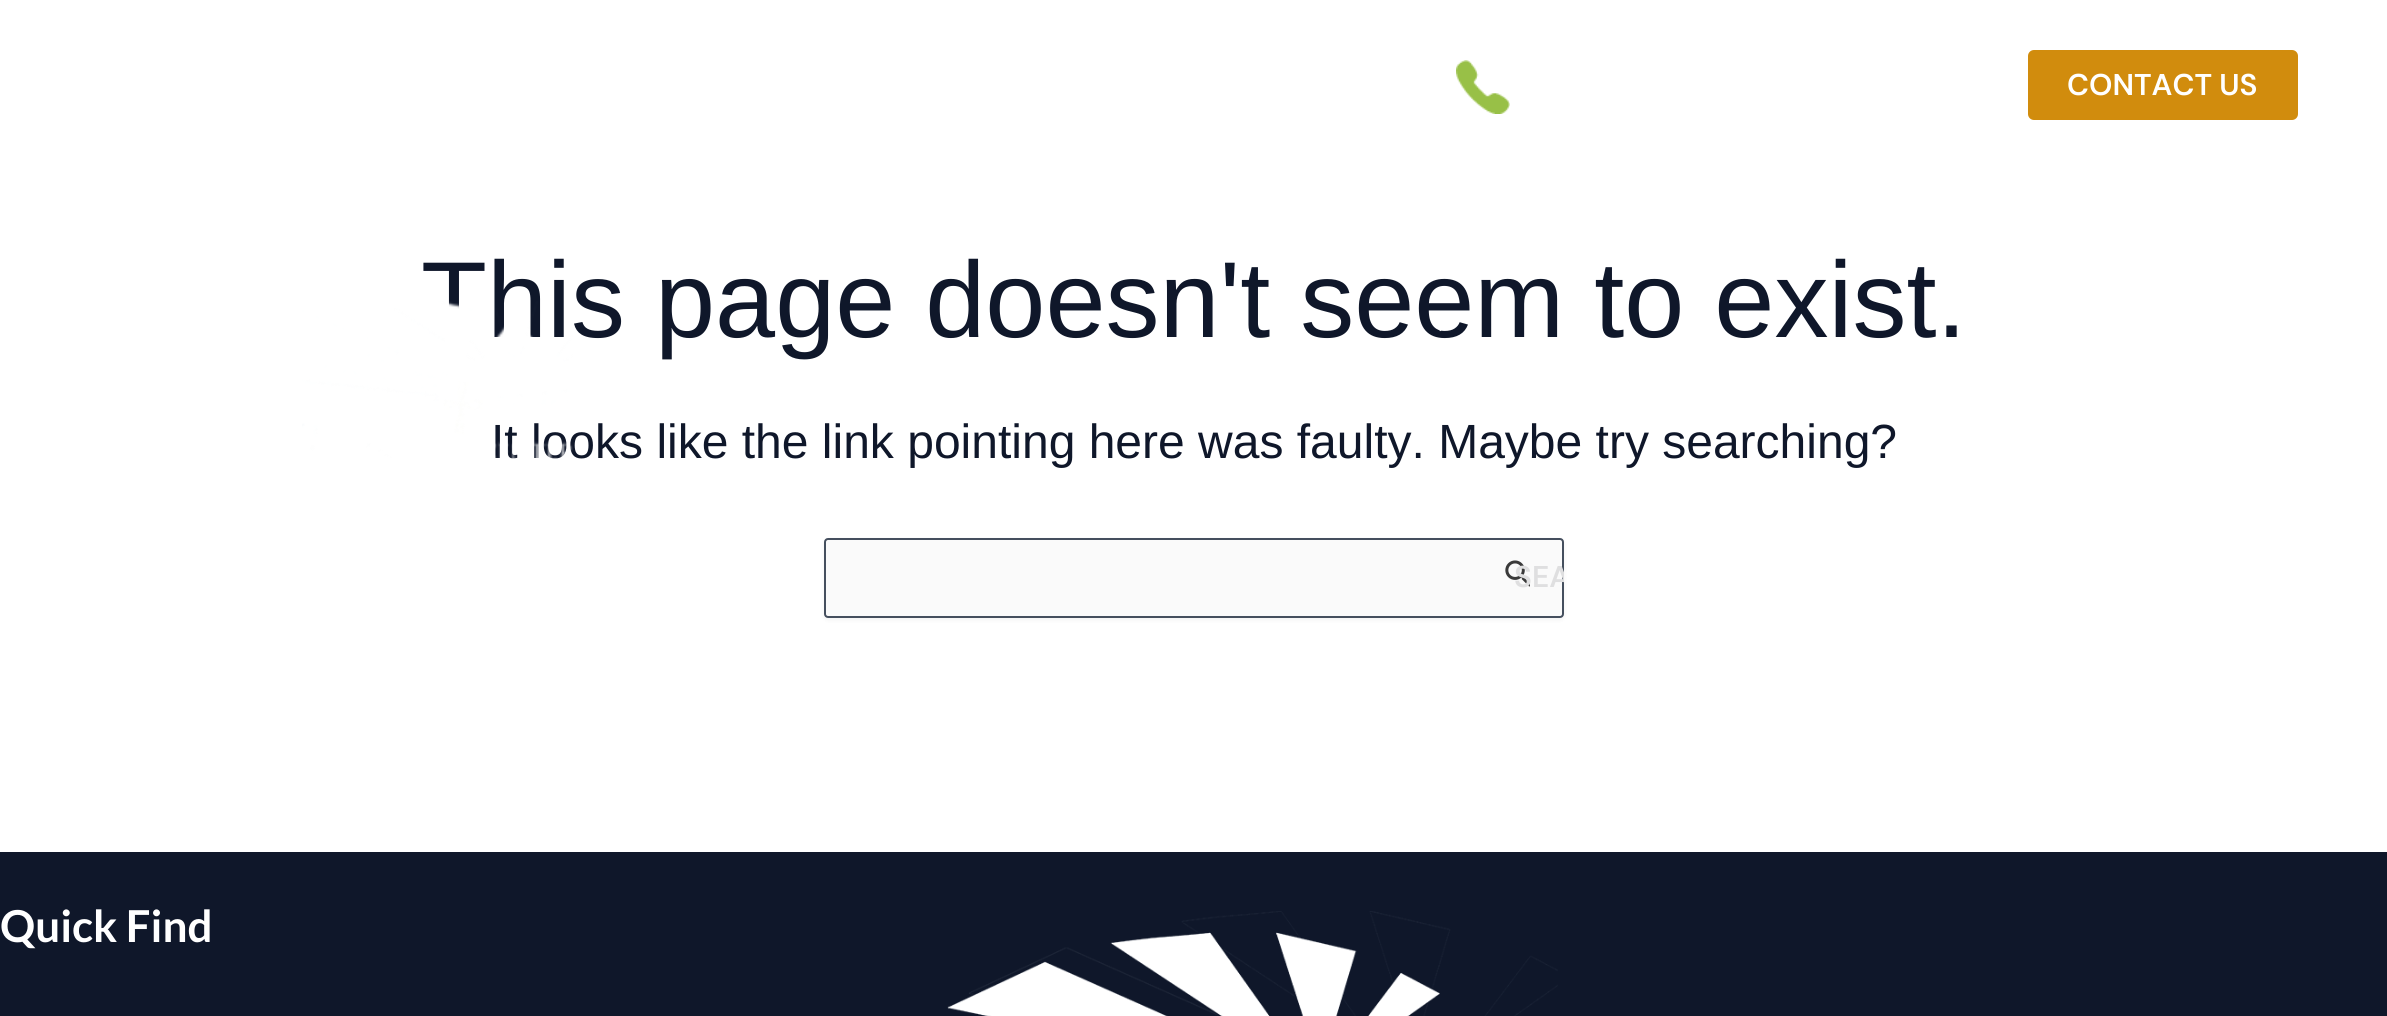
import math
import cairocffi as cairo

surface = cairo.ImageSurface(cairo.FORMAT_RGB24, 2387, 1016)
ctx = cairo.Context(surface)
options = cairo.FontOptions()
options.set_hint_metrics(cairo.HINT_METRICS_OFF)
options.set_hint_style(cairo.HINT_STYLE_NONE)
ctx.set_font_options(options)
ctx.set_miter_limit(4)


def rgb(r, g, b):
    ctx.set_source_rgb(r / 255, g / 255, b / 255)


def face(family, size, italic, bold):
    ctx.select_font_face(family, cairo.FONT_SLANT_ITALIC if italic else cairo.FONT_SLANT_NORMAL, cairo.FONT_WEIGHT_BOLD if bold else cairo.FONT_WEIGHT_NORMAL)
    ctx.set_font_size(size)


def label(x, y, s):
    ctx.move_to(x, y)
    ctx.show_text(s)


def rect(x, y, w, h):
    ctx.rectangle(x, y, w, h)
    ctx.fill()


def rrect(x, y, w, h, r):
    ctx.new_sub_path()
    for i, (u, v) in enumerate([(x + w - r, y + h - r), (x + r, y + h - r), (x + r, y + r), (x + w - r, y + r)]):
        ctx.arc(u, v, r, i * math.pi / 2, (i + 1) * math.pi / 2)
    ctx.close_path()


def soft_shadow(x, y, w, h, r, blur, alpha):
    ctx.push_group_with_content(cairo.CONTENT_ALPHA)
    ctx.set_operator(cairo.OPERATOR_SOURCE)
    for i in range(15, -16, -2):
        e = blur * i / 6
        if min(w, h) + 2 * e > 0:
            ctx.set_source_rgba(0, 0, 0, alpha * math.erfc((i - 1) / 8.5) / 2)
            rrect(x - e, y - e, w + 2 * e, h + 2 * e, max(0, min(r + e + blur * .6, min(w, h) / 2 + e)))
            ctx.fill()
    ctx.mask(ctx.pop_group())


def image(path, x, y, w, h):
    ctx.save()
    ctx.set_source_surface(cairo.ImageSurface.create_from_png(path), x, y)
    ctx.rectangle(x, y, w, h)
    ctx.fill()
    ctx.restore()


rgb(255, 255, 255)
ctx.paint()
image('image0.png', 1456, 60, 54, 54)
rgb(209, 140, 13)
rrect(2028, 50, 270, 70, 6)
ctx.fill()
face('DM Sans SemiBold', 30, 0, 0)
rgb(255, 255, 255)
label(2067, 95, 'CONTACT US')
face('Liberation Sans', 108, 0, 0)
rgb(15, 23, 42)
label(421, 337, 'This page doesn\'t seem to exist.')
face('Liberation Sans', 48, 0, 0)
label(491, 458, 'It looks like the link pointing here was faulty. Maybe try searching?')
image('image1.png', 302, 301, 271, 158)
image('image2.png', 1438, 329, 4, 3)
rgb(0, 0, 0)
soft_shadow(824, 540, 740, 80, 4, 2, 0.05)
rgb(250, 250, 250)
rrect(825, 539, 738, 78, 3)
ctx.fill_preserve()
rgb(69, 79, 94)
ctx.stroke()
image('image3.png', 1505, 560, 25, 27)
ctx.save()
rrect(1474, 538, 90, 82, 4)
ctx.clip()
face('DM Sans SemiBold', 30, 0, 0)
rgb(223, 223, 224)
label(1514, 587, 'SEA')
ctx.restore()
rgb(15, 23, 42)
rect(0, 852, 2387, 164)
face('Lato', 44, 0, 1)
rgb(255, 255, 255)
label(0, 942, 'Quick Find')
image('image4.png', 947, 911, 611, 105)
surface.write_to_png('render.png')
